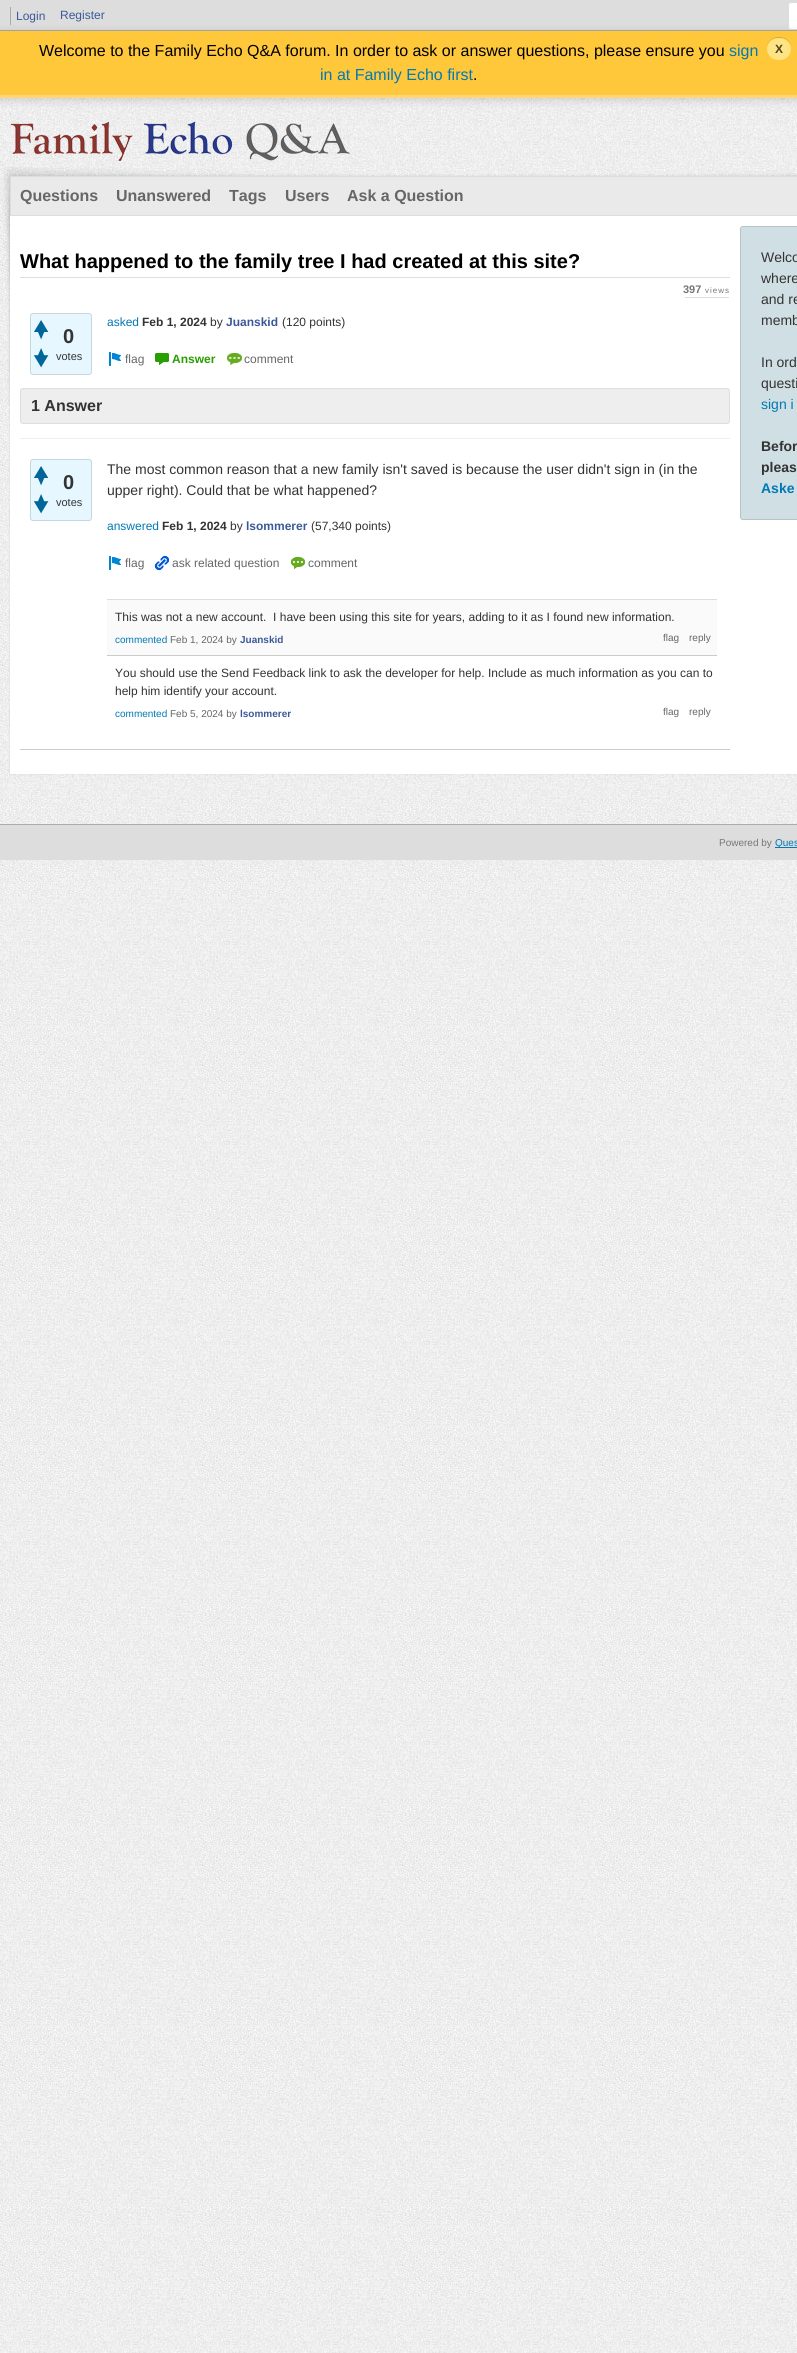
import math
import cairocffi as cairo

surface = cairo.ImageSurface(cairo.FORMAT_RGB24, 797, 2353)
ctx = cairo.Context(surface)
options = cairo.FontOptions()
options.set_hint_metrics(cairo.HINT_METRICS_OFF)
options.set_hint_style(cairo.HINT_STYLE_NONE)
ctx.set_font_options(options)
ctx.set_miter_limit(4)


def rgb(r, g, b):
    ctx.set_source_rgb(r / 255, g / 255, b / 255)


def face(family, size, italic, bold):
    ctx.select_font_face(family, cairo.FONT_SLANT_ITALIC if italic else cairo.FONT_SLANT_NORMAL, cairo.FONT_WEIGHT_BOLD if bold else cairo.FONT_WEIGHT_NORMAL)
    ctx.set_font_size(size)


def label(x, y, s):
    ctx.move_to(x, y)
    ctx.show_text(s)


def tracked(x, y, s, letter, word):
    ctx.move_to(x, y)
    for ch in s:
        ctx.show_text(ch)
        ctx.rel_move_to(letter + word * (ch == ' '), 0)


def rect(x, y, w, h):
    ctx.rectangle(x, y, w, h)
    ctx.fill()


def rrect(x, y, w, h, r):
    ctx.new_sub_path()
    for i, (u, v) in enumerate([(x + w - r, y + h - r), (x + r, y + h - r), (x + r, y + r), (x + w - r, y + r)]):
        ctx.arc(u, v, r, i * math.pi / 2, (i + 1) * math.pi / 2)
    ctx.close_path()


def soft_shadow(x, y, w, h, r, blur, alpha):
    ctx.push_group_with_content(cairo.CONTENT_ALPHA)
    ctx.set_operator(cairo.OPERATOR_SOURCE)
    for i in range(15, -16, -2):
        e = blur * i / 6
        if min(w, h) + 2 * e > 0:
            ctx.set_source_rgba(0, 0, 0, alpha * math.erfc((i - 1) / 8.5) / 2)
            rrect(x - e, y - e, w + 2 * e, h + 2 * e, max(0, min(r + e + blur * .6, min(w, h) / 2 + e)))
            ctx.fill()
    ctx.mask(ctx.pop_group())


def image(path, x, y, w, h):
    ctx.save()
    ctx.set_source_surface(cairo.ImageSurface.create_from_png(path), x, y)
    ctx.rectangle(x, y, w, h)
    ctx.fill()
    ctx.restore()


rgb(255, 255, 255)
ctx.paint()
image('image0.png', 0, 98, 797, 2255)
rgb(221, 221, 221)
rect(0, 0, 797, 30)
rgb(170, 170, 170)
rect(0, 30, 797, 1)
rect(10, 7, 1, 18)
face('Liberation Sans', 12, 0, 0)
rgb(59, 89, 152)
label(16, 20, 'Login')
label(60, 19, 'Register')
rgb(255, 255, 255)
ctx.new_path()
ctx.move_to(791, 2.5)
ctx.line_to(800.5, 2.5)
ctx.line_to(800.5, 29.5)
ctx.line_to(791, 29.5)
ctx.curve_to(789.5, 29.5, 788.5, 28.5, 788.5, 27)
ctx.line_to(788.5, 5)
ctx.curve_to(788.5, 3.5, 789.5, 2.5, 791, 2.5)
ctx.close_path()
ctx.fill_preserve()
rgb(221, 221, 221)
ctx.set_line_width(1)
ctx.stroke()
image('image1.png', 10, 113, 340, 48)
rgb(0, 0, 0)
soft_shadow(0, 33, 797, 67, 0, 5, 0.15)
rgb(255, 199, 58)
rect(0, 31, 797, 64)
rgb(255, 215, 122)
rect(0, 95, 797, 3)
face('Liberation Sans', 16, 0, 0)
rgb(0, 0, 0)
label(39, 56, 'Welcome to the Family Echo Q&A forum. In order to ask or answer questions, please ensure you')
rgb(1, 121, 181)
label(729, 56, 'sign')
rgb(217, 169, 49)
ctx.new_path()
ctx.move_to(778, 37)
ctx.curve_to(772, 37, 766.5, 42.5, 767, 48.5)
ctx.curve_to(767.5, 34.5, 790.5, 34.5, 791, 48.5)
ctx.curve_to(791.5, 42.5, 786, 37, 780, 37)
ctx.close_path()
ctx.fill()
rgb(255, 228, 132)
rrect(767, 38, 24, 22, 11)
ctx.fill()
face('Liberation Sans', 12, 0, 1)
rgb(77, 68, 40)
label(775, 53, 'X')
face('Liberation Sans', 16, 0, 0)
rgb(1, 121, 181)
label(320, 80, 'in at Family Echo first')
rgb(0, 0, 0)
label(473, 80, '.')
image('image2.png', 3, 167, 794, 239)
rgb(0, 0, 0)
soft_shadow(10, 176, 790, 598, 0, 1, 0.1)
rgb(255, 255, 255)
rect(10, 216, 787, 558)
rgb(234, 234, 234)
ctx.rectangle(10.5, 176.5, 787, 39)
ctx.fill_preserve()
rgb(221, 221, 221)
ctx.stroke()
face('Liberation Sans', 16, 0, 1)
rgb(102, 102, 102)
label(20, 201, 'Questions')
label(116, 201, 'Unanswered')
label(229, 201, 'Tags')
label(285, 201, 'Users')
label(347, 201, 'Ask a Question')
rgb(221, 221, 221)
rect(20, 277, 710, 1)
face('Liberation Sans', 20, 0, 1)
rgb(0, 0, 0)
label(20, 268, 'What happened to the family tree I had created at this site?')
rgb(231, 247, 255)
rrect(30.5, 313.5, 61, 61, 2.5)
ctx.fill_preserve()
rgb(197, 214, 223)
ctx.stroke()
image('image3.png', 34, 320, 15, 20)
image('image4.png', 33, 348, 16, 20)
rgb(51, 51, 51)
label(63, 343, '0')
face('Liberation Sans', 11, 0, 0)
label(56, 360, 'votes')
rgb(221, 221, 221)
rect(685, 297, 44, 1)
face('Liberation Sans', 11, 0, 1)
rgb(119, 119, 119)
label(683, 293, '397')
face('Liberation Sans', 8, 0, 0)
tracked(705, 293, 'views', 1, 0)
face('Liberation Sans', 12, 0, 0)
rgb(1, 121, 181)
label(107, 326, 'asked')
face('Liberation Sans', 12, 0, 1)
rgb(51, 51, 51)
label(142, 326, 'Feb 1, 2024')
face('Liberation Sans', 12, 0, 0)
label(210, 326, 'by')
face('Liberation Sans', 12, 0, 1)
rgb(59, 89, 152)
label(226, 326, 'Juanskid')
face('Liberation Sans', 12, 0, 0)
rgb(51, 51, 51)
label(282, 326, '(120 points)')
image('image5.png', 109, 352, 12, 14)
rgb(102, 102, 102)
label(125, 363, 'flag')
image('image6.png', 154, 353, 15, 12)
face('Liberation Sans', 12, 0, 1)
rgb(40, 158, 0)
label(172, 363, 'Answer')
image('image7.png', 226, 353, 16, 12)
face('Liberation Sans', 12, 0, 0)
rgb(102, 102, 102)
label(244, 363, 'comment')
rgb(238, 238, 238)
rrect(20.5, 388.5, 709, 35, 2.5)
ctx.fill_preserve()
rgb(221, 221, 221)
ctx.stroke()
face('Liberation Sans', 16, 0, 1)
rgb(51, 51, 51)
label(31, 411, '1 Answer')
rgb(238, 238, 238)
rect(20, 438, 710, 1)
rgb(204, 204, 204)
rect(20, 749, 710, 1)
rgb(231, 247, 255)
rrect(30.5, 459.5, 61, 61, 2.5)
ctx.fill_preserve()
rgb(197, 214, 223)
ctx.stroke()
image('image3.png', 34, 466, 15, 20)
image('image4.png', 33, 494, 16, 20)
face('Liberation Sans', 20, 0, 1)
rgb(51, 51, 51)
label(63, 489, '0')
face('Liberation Sans', 11, 0, 0)
label(56, 506, 'votes')
face('Liberation Sans', 14, 0, 0)
label(107, 474, 'The most common reason that a new family isn\'t saved is because the user didn\'t sign in (in the')
label(107, 495, 'upper right). Could that be what happened?')
face('Liberation Sans', 12, 0, 0)
rgb(1, 121, 181)
label(107, 530, 'answered')
face('Liberation Sans', 12, 0, 1)
rgb(51, 51, 51)
label(162, 530, 'Feb 1, 2024')
face('Liberation Sans', 12, 0, 0)
label(230, 530, 'by')
face('Liberation Sans', 12, 0, 1)
rgb(59, 89, 152)
label(246, 530, 'lsommerer')
face('Liberation Sans', 12, 0, 0)
rgb(51, 51, 51)
label(311, 530, '(57,340 points)')
image('image5.png', 109, 556, 12, 14)
rgb(102, 102, 102)
label(125, 567, 'flag')
image('image8.png', 154, 556, 15, 15)
label(172, 567, 'ask related question')
image('image9.png', 290, 557, 15, 12)
label(308, 567, 'comment')
rgb(221, 221, 221)
rect(107, 599, 610, 1)
rgb(250, 250, 250)
rect(107, 600, 610, 55)
rgb(204, 204, 204)
rect(107, 655, 610, 1)
rgb(51, 51, 51)
label(115, 621, 'This was not a new account.  I have been using this site for years, adding to it as I found new information.')
face('Liberation Sans', 10, 0, 0)
rgb(1, 121, 181)
label(115, 643, 'commented')
rgb(102, 102, 102)
label(170, 643, 'Feb 1, 2024 by')
face('Liberation Sans', 10, 0, 1)
rgb(59, 89, 152)
label(240, 643, 'Juanskid')
face('Liberation Sans', 10, 0, 0)
rgb(102, 102, 102)
label(663, 641, 'flag')
label(689, 641, 'reply')
face('Liberation Sans', 12, 0, 0)
rgb(51, 51, 51)
label(115, 677, 'You should use the Send Feedback link to ask the developer for help. Include as much information as you can to')
label(115, 695, 'help him identify your account.')
face('Liberation Sans', 10, 0, 0)
rgb(1, 121, 181)
label(115, 717, 'commented')
rgb(102, 102, 102)
label(170, 717, 'Feb 5, 2024 by')
face('Liberation Sans', 10, 0, 1)
rgb(59, 89, 152)
label(240, 717, 'lsommerer')
face('Liberation Sans', 10, 0, 0)
rgb(102, 102, 102)
label(663, 715, 'flag')
label(689, 715, 'reply')
rgb(208, 223, 228)
rrect(740.5, 226.5, 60, 293, 2.5)
ctx.fill_preserve()
rgb(182, 196, 200)
ctx.stroke()
face('Liberation Sans', 14, 0, 0)
rgb(51, 51, 51)
label(761, 262, 'Welco')
label(761, 283, 'where')
label(761, 304, 'and re')
label(761, 325, 'memb')
label(761, 367, 'In ord')
label(761, 388, 'questi')
rgb(1, 121, 181)
label(761, 409, 'sign i')
face('Liberation Sans', 14, 0, 1)
rgb(51, 51, 51)
label(761, 451, 'Befor')
label(761, 472, 'pleas')
rgb(1, 121, 181)
label(761, 493, 'Aske')
rgb(221, 221, 221)
rect(0, 825, 797, 35)
rgb(170, 170, 170)
rect(0, 824, 797, 1)
face('Liberation Sans', 10, 0, 0)
rgb(119, 119, 119)
label(719, 846, 'Powered by')
rgb(1, 121, 181)
rect(775, 847, 22, 1)
label(775, 846, 'Ques')
surface.write_to_png('render.png')
